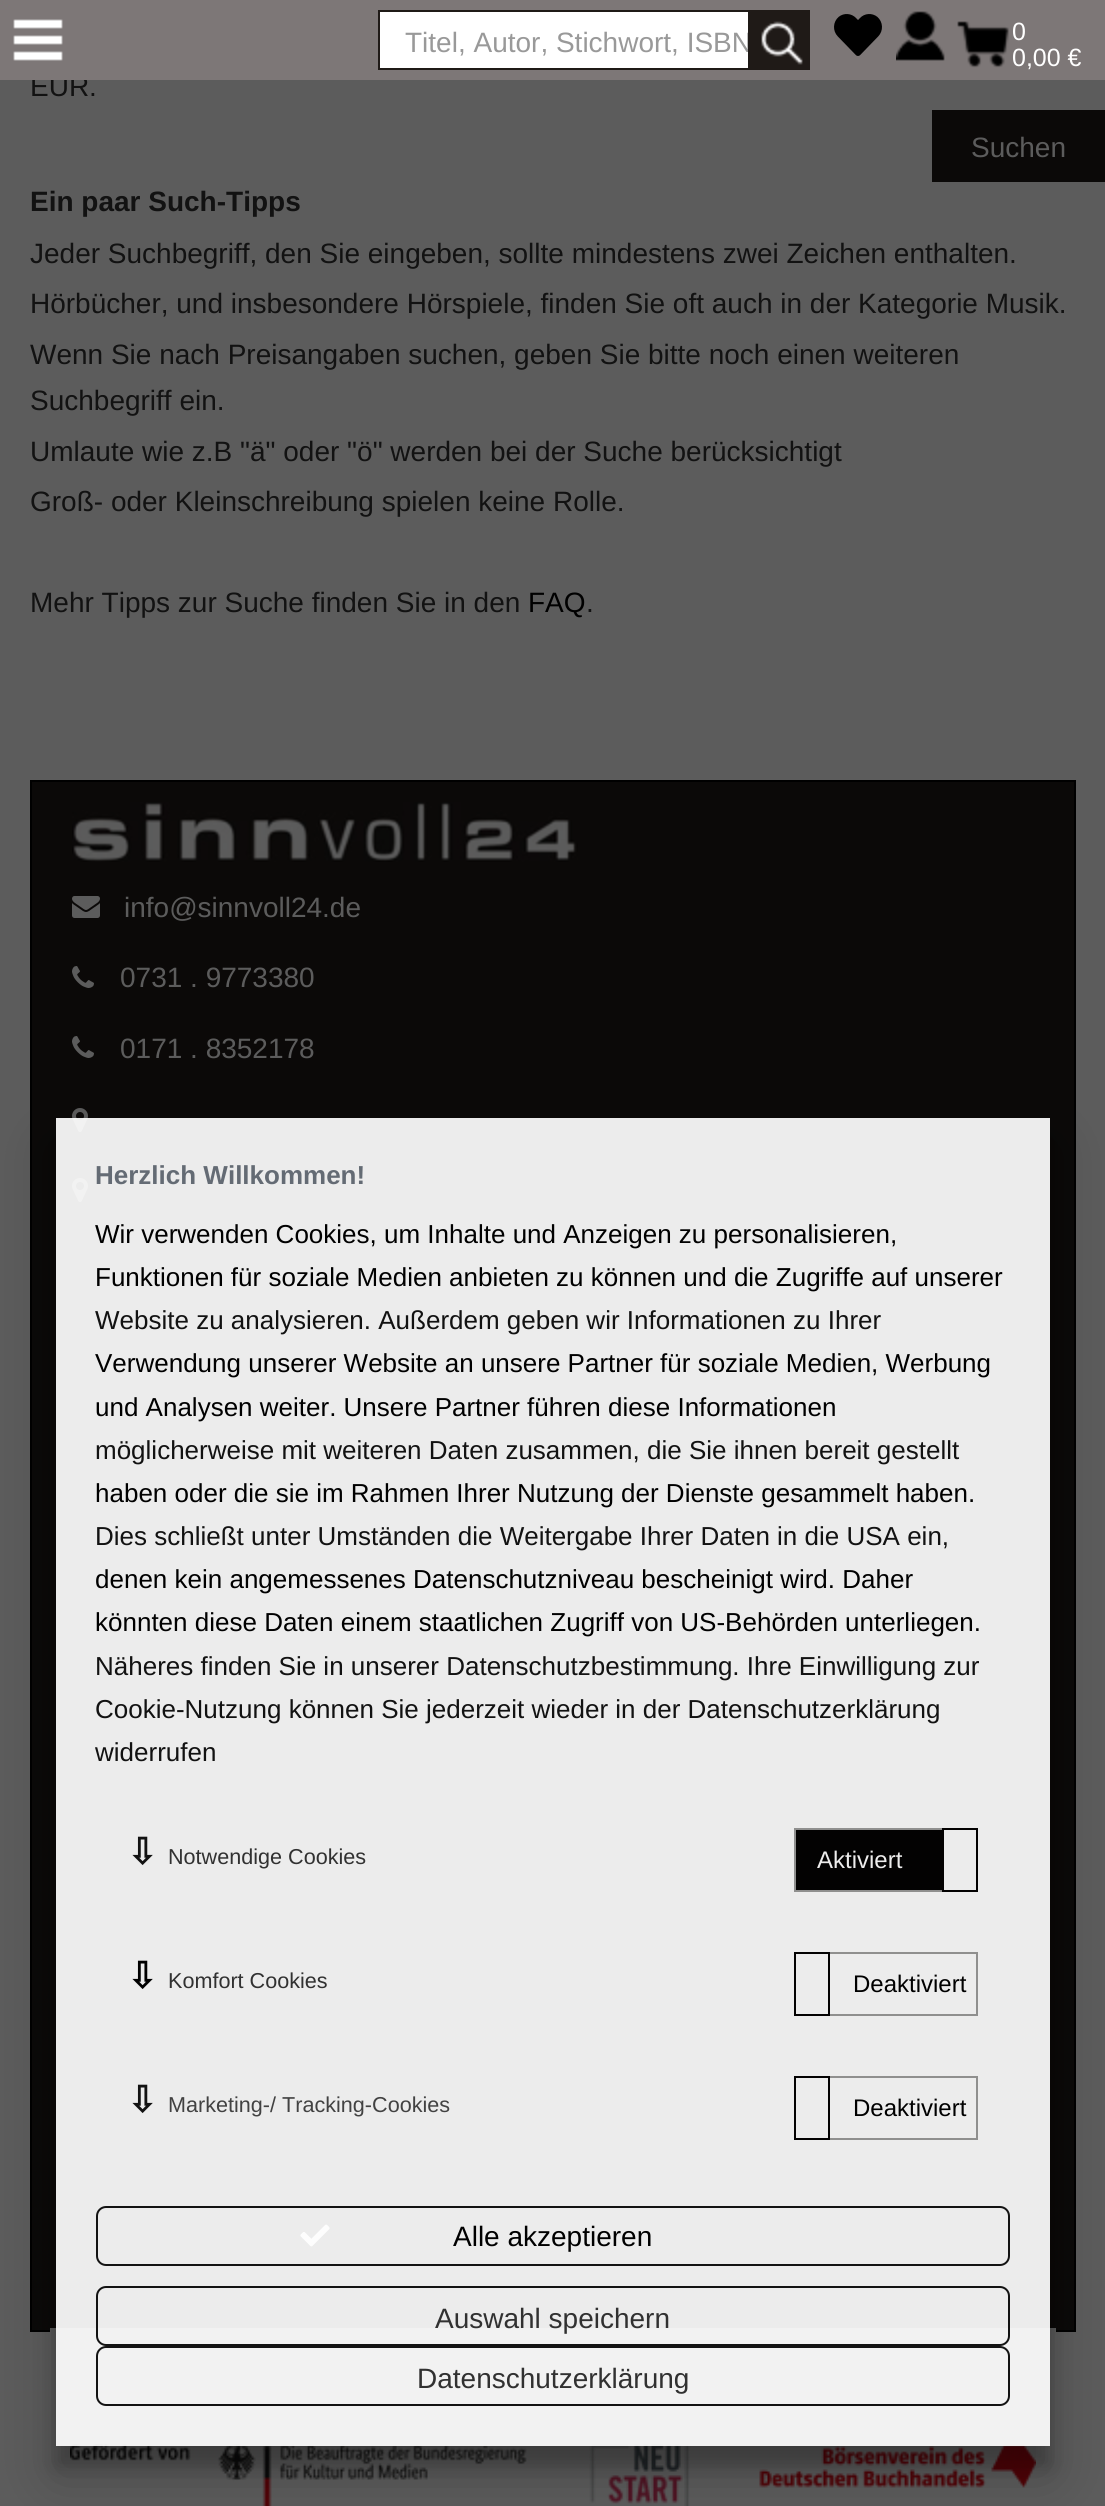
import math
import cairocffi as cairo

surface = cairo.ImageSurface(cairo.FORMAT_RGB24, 1105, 2506)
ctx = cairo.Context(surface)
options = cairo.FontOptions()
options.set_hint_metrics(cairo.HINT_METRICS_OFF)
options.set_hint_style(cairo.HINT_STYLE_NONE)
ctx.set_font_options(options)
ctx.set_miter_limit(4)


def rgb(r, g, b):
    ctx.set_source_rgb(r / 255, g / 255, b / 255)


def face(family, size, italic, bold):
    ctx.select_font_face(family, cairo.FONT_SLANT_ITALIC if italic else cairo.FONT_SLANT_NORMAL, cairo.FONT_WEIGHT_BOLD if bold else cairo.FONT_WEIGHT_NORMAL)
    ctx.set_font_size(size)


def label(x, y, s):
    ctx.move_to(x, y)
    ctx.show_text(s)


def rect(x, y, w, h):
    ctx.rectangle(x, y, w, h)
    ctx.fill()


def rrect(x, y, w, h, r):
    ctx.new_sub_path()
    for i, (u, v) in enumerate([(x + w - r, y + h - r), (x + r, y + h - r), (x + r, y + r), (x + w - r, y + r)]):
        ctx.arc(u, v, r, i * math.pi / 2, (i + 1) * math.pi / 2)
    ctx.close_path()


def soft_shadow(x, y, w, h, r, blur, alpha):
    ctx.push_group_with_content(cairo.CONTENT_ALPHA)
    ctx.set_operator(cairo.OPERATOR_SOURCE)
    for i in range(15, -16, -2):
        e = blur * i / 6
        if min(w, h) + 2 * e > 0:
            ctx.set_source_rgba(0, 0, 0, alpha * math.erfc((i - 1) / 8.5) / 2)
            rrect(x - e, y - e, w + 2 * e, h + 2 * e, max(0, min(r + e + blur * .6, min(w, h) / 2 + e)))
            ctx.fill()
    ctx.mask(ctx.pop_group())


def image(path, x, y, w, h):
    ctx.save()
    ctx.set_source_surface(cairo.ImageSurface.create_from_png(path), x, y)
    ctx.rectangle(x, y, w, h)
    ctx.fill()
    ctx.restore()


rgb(92, 92, 92)
ctx.paint()
face('Liberation Sans', 28, 0, 0)
rgb(18, 18, 18)
label(30, 96, 'EUR.')
rgb(125, 119, 119)
rect(0, 0, 1105, 80)
image('image0.png', 13, 19, 50, 42)
rgb(255, 255, 255)
rect(380, 12, 368, 56)
ctx.rectangle(379, 11, 430, 58)
rgb(31, 26, 23)
ctx.stroke()
rgb(153, 153, 153)
label(405, 52, 'Titel, Autor, Stichwort, ISBN')
rgb(31, 26, 23)
rect(748, 12, 60, 56)
image('image1.png', 761, 21, 42, 44)
image('image2.png', 834, 14, 48, 42)
image('image3.png', 896, 11, 49, 50)
image('image4.png', 957, 21, 52, 47)
face('Liberation Sans', 25, 0, 0)
rgb(255, 255, 255)
label(1012, 40, '0')
label(1012, 66, '0,00 €')
rgb(11, 9, 8)
rect(932, 110, 173, 72)
face('Liberation Sans', 28, 0, 0)
rgb(92, 92, 92)
label(971, 157, 'Suchen')
face('Liberation Sans', 28, 0, 1)
rgb(18, 18, 18)
label(30, 211, 'Ein paar Such-Tipps')
face('Liberation Sans', 28, 0, 0)
label(30, 263, 'Jeder Suchbegriff, den Sie eingeben, sollte mindestens zwei Zeichen enthalten.')
label(30, 313, 'Hörbücher, und insbesondere Hörspiele, finden Sie oft auch in der Kategorie Musik.')
label(30, 364, 'Wenn Sie nach Preisangaben suchen, geben Sie bitte noch einen weiteren')
label(30, 410, 'Suchbegriff ein.')
label(30, 461, 'Umlaute wie z.B "ä" oder "ö" werden bei der Suche berücksichtigt')
label(30, 511, 'Groß- oder Kleinschreibung spielen keine Rolle.')
label(30, 612, 'Mehr Tipps zur Suche finden Sie in den')
rgb(0, 0, 0)
label(528, 612, 'FAQ')
rgb(18, 18, 18)
label(586, 612, '.')
rgb(11, 9, 8)
ctx.rectangle(31, 781, 1044, 1550)
ctx.fill_preserve()
rgb(0, 0, 0)
ctx.stroke()
image('image5.png', 72, 802, 506, 60)
image('image6.png', 72, 896, 28, 22)
rgb(92, 92, 92)
label(124, 917, 'info@sinnvoll24.de')
image('image7.png', 72, 966, 22, 22)
label(120, 987, '0731 . 9773380')
image('image7.png', 72, 1036, 22, 22)
label(120, 1058, '0171 . 8352178')
image('image8.png', 72, 1108, 16, 24)
image('image8.png', 72, 1178, 16, 24)
rect(50, 2328, 1006, 4)
image('image9.png', 70, 2444, 966, 62)
ctx.save()
ctx.set_fill_rule(cairo.FILL_RULE_EVEN_ODD)
ctx.new_path()
ctx.move_to(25, 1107)
ctx.line_to(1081, 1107)
ctx.line_to(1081, 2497)
ctx.line_to(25, 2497)
ctx.close_path()
ctx.move_to(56, 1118)
ctx.line_to(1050, 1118)
ctx.line_to(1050, 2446)
ctx.line_to(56, 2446)
ctx.close_path()
ctx.clip()
rgb(0, 0, 0)
soft_shadow(56, 1138, 994, 1328, 0, 10, 0.2)
ctx.restore()
ctx.save()
ctx.set_fill_rule(cairo.FILL_RULE_EVEN_ODD)
ctx.new_path()
ctx.move_to(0, 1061)
ctx.line_to(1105, 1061)
ctx.line_to(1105, 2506)
ctx.line_to(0, 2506)
ctx.close_path()
ctx.move_to(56, 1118)
ctx.line_to(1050, 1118)
ctx.line_to(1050, 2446)
ctx.line_to(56, 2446)
ctx.close_path()
ctx.clip()
rgb(0, 0, 0)
soft_shadow(56, 1146, 994, 1328, 0, 28, 0.23)
ctx.restore()
ctx.set_source_rgba(1, 1, 1, 0.92)
rect(56, 1118, 994, 1328)
face('Liberation Sans', 26, 0, 1)
rgb(100, 107, 116)
label(95, 1184, 'Herzlich Willkommen!')
face('Liberation Sans', 26, 0, 0)
rgb(0, 0, 0)
label(95, 1243, 'Wir verwenden Cookies, um Inhalte und Anzeigen zu personalisieren,')
label(95, 1286, 'Funktionen für soziale Medien anbieten zu können und die Zugriffe auf unserer')
rgb(18, 18, 18)
label(95, 1329, 'Website zu analysieren. Außerdem geben wir Informationen zu Ihrer')
rgb(0, 0, 0)
label(95, 1372, 'Verwendung unserer Website an unsere Partner für soziale Medien, Werbung')
label(95, 1416, 'und Analysen weiter. Unsere Partner führen diese Informationen')
rgb(18, 18, 18)
label(95, 1459, 'möglicherweise mit weiteren Daten zusammen, die Sie ihnen bereit gestellt')
rgb(0, 0, 0)
label(95, 1502, 'haben oder die sie im Rahmen Ihrer Nutzung der Dienste gesammelt haben.')
rgb(18, 18, 18)
label(95, 1545, 'Dies schließt unter Umständen die Weitergabe Ihrer Daten in die USA ein,')
rgb(0, 0, 0)
label(95, 1588, 'denen kein angemessenes Datenschutzniveau bescheinigt wird. Daher')
label(95, 1631, 'könnten diese Daten einem staatlichen Zugriff von US-Behörden unterliegen.')
rgb(18, 18, 18)
label(95, 1675, 'Näheres finden Sie in unserer Datenschutzbestimmung. Ihre Einwilligung zur')
label(95, 1718, 'Cookie-Nutzung können Sie jederzeit wieder in der Datenschutzerklärung')
label(95, 1761, 'widerrufen')
face('DejaVu Sans', 36, 0, 1)
label(127, 1864, '⇩')
face('Liberation Sans', 21.6, 0, 0)
rgb(49, 49, 49)
label(168, 1864, 'Notwendige Cookies')
ctx.rectangle(795, 1829, 182, 62)
rgb(143, 143, 142)
ctx.stroke()
rgb(3, 2, 2)
rect(796, 1830, 146, 60)
face('Liberation Sans', 24, 0, 0)
rgb(237, 236, 236)
label(817, 1868, 'Aktiviert')
ctx.rectangle(943, 1829, 34, 62)
rgb(3, 2, 2)
ctx.stroke()
face('DejaVu Sans', 36, 0, 1)
rgb(0, 0, 0)
label(127, 1988, '⇩')
face('Liberation Sans', 21.6, 0, 0)
rgb(49, 49, 49)
label(168, 1988, 'Komfort Cookies')
ctx.rectangle(795, 1953, 182, 62)
rgb(143, 143, 142)
ctx.stroke()
ctx.rectangle(795, 1953, 34, 62)
rgb(3, 2, 2)
ctx.stroke()
face('Liberation Sans', 24, 0, 0)
rgb(0, 0, 0)
label(853, 1992, 'Deaktiviert')
face('DejaVu Sans', 36, 0, 1)
rgb(18, 18, 18)
label(127, 2112, '⇩')
face('Liberation Sans', 21.6, 0, 0)
rgb(66, 66, 66)
label(168, 2112, 'Marketing-/ Tracking-Cookies')
ctx.rectangle(795, 2077, 182, 62)
rgb(143, 143, 142)
ctx.stroke()
ctx.rectangle(795, 2077, 34, 62)
rgb(3, 2, 2)
ctx.stroke()
face('Liberation Sans', 24, 0, 0)
rgb(0, 0, 0)
label(853, 2116, 'Deaktiviert')
image('image10.png', 300, 2224, 30, 23)
rrect(97, 2207, 912, 58, 9)
ctx.set_source_rgba(0, 0, 0, 0.92)
ctx.stroke()
face('Liberation Sans', 28, 0, 0)
rgb(0, 0, 0)
label(453, 2246, 'Alle akzeptieren')
rrect(97, 2287, 912, 58, 9)
ctx.set_source_rgba(0, 0, 0, 0.92)
ctx.stroke()
rgb(49, 49, 49)
label(435, 2328, 'Auswahl speichern')
rrect(97, 2347, 912, 58, 9)
ctx.set_source_rgba(0, 0, 0, 0.92)
ctx.stroke()
rgb(49, 49, 49)
label(417, 2388, 'Datenschutzerklärung')
surface.write_to_png('render.png')
